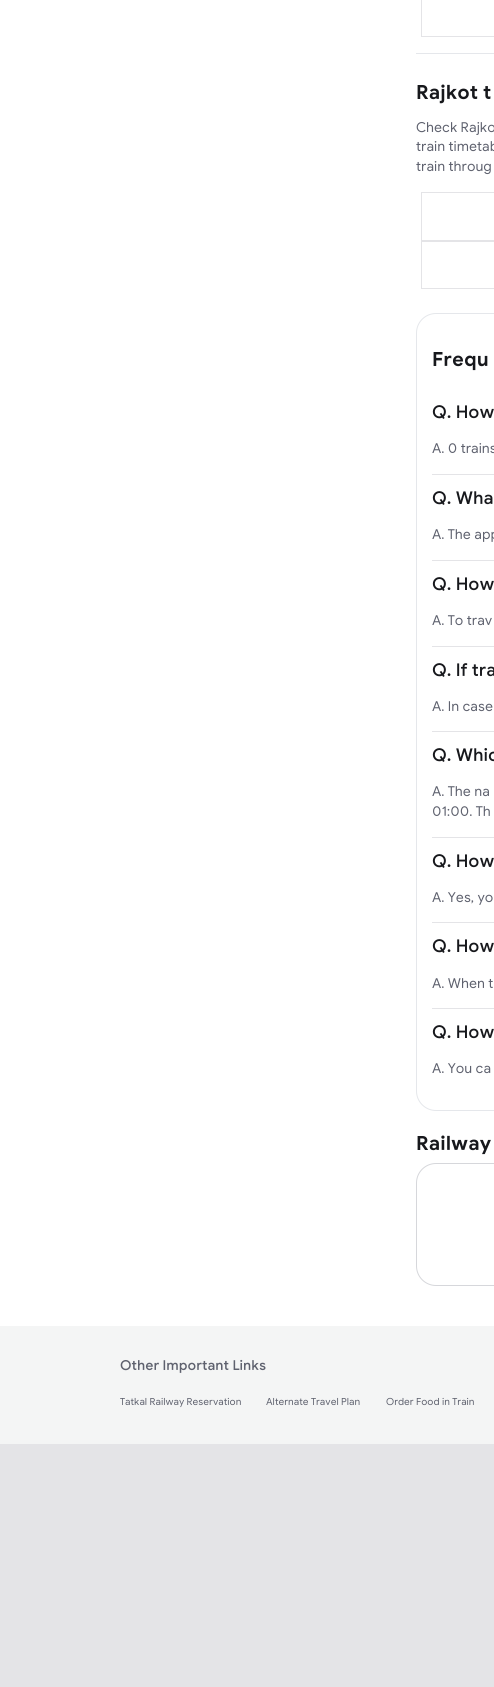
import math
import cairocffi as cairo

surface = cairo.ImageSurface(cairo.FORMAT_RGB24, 494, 1687)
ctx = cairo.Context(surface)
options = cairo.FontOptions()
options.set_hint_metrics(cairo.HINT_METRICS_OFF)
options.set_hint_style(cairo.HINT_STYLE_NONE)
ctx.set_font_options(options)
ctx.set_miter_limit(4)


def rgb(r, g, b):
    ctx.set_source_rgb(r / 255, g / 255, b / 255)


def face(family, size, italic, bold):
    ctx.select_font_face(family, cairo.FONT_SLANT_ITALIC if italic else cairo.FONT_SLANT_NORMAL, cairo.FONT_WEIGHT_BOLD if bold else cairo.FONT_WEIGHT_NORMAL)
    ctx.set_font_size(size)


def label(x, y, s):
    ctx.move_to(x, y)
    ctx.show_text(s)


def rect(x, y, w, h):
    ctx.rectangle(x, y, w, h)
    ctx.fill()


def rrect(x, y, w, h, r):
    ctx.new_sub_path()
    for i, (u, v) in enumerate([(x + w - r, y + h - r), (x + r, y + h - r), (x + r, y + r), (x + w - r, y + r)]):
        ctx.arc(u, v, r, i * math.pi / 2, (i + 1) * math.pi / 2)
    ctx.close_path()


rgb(255, 255, 255)
ctx.paint()
ctx.rectangle(421.5, -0.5, 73, 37)
rgb(228, 228, 231)
ctx.set_line_width(1)
ctx.stroke()
rgb(229, 231, 235)
rect(416, 53, 78, 1)
face('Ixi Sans', 20, 0, 1)
rgb(23, 24, 28)
label(416, 99, 'Rajkot t')
face('Ixi Sans', 14, 0, 0)
rgb(94, 97, 110)
label(416, 132, 'Check Rajko')
label(416, 151, 'train timetab')
label(416, 171, 'train throug')
ctx.rectangle(421.5, 192.5, 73, 48)
rgb(228, 228, 231)
ctx.stroke()
ctx.rectangle(421.5, 241.5, 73, 47)
ctx.stroke()
rrect(416.5, 313.5, 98, 797, 19.5)
rgb(229, 231, 235)
ctx.stroke()
face('Ixi Sans', 20, 0, 1)
rgb(23, 24, 28)
label(432, 366, 'Frequ')
rgb(228, 228, 231)
rect(432, 474, 62, 1)
face('Ixi Sans Medium', 18, 0, 0)
rgb(23, 24, 28)
label(432, 418, 'Q. How')
face('Ixi Sans', 14, 0, 0)
rgb(94, 97, 110)
label(432, 453, 'A. 0 trains')
rgb(228, 228, 231)
rect(432, 560, 62, 1)
face('Ixi Sans Medium', 18, 0, 0)
rgb(23, 24, 28)
label(432, 504, 'Q. Wha')
face('Ixi Sans', 14, 0, 0)
rgb(94, 97, 110)
label(432, 539, 'A. The app')
rgb(228, 228, 231)
rect(432, 646, 62, 1)
face('Ixi Sans Medium', 18, 0, 0)
rgb(23, 24, 28)
label(432, 590, 'Q. How')
face('Ixi Sans', 14, 0, 0)
rgb(94, 97, 110)
label(432, 625, 'A. To trav')
rgb(228, 228, 231)
rect(432, 731, 62, 1)
face('Ixi Sans Medium', 18, 0, 0)
rgb(23, 24, 28)
label(432, 676, 'Q. If tra')
face('Ixi Sans', 14, 0, 0)
rgb(94, 97, 110)
label(432, 711, 'A. In case')
rgb(228, 228, 231)
rect(432, 837, 62, 1)
face('Ixi Sans Medium', 18, 0, 0)
rgb(23, 24, 28)
label(432, 761, 'Q. Whic')
face('Ixi Sans', 14, 0, 0)
rgb(94, 97, 110)
label(432, 796, 'A. The na')
label(432, 816, '01:00. Th')
rgb(228, 228, 231)
rect(432, 922, 62, 1)
face('Ixi Sans Medium', 18, 0, 0)
rgb(23, 24, 28)
label(432, 867, 'Q. How')
face('Ixi Sans', 14, 0, 0)
rgb(94, 97, 110)
label(432, 902, 'A. Yes, yo')
rgb(228, 228, 231)
rect(432, 1008, 62, 1)
face('Ixi Sans Medium', 18, 0, 0)
rgb(23, 24, 28)
label(432, 952, 'Q. How')
face('Ixi Sans', 14, 0, 0)
rgb(94, 97, 110)
label(432, 988, 'A. When t')
face('Ixi Sans Medium', 18, 0, 0)
rgb(23, 24, 28)
label(432, 1038, 'Q. How')
face('Ixi Sans', 14, 0, 0)
rgb(94, 97, 110)
label(432, 1073, 'A. You ca')
face('Ixi Sans', 20, 0, 1)
rgb(23, 24, 28)
label(416, 1150, 'Railway')
rrect(416.5, 1163.5, 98, 122, 19.5)
rgb(214, 215, 219)
ctx.stroke()
rgb(244, 245, 245)
rect(0, 1326, 494, 118)
face('Ixi Sans Medium', 14, 0, 0)
rgb(94, 97, 110)
label(120, 1370, 'Other Important Links')
face('Ixi Sans', 10, 0, 0)
label(120, 1405, 'Tatkal Railway Reservation')
label(266, 1405, 'Alternate Travel Plan')
label(386, 1405, 'Order Food in Train')
rgb(228, 228, 231)
rect(0, 1444, 494, 243)
surface.write_to_png('render.png')
